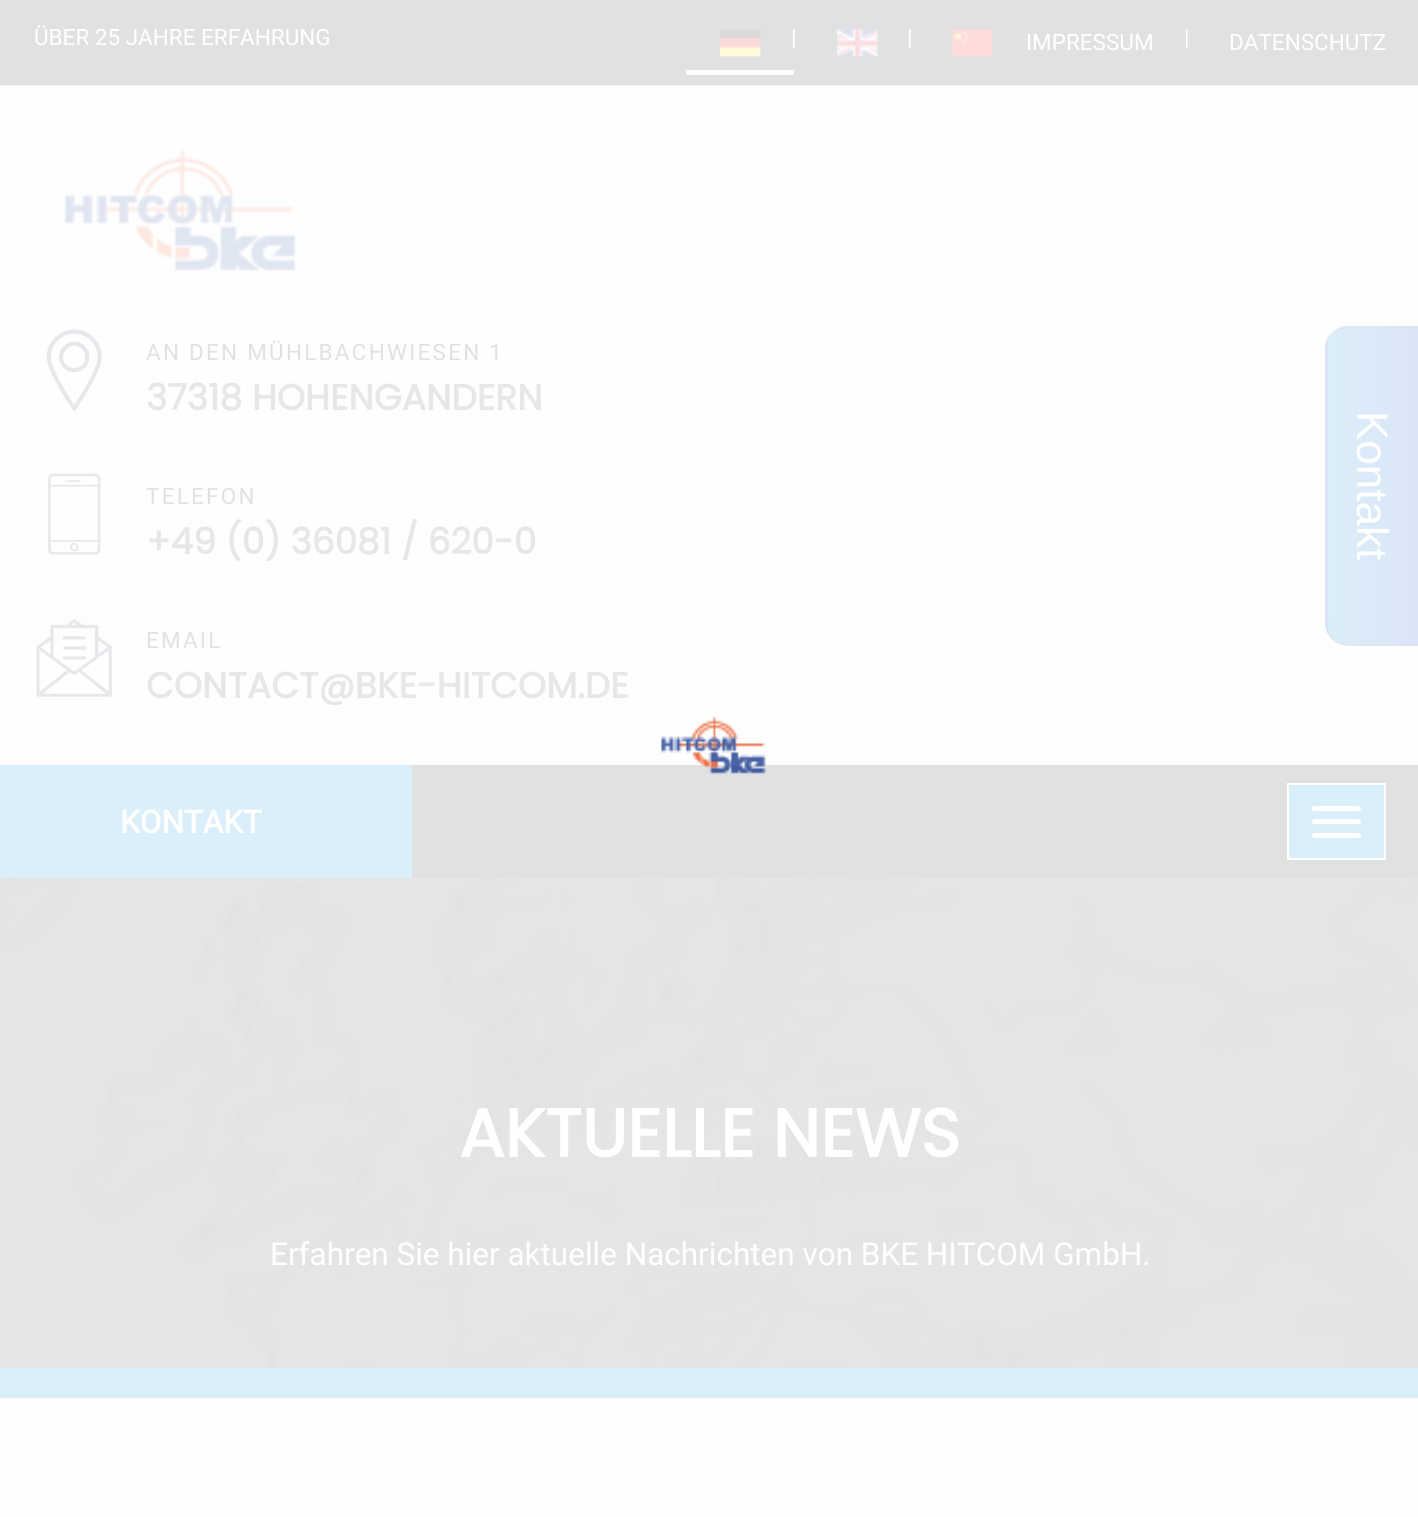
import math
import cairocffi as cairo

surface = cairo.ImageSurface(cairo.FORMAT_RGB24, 1418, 1517)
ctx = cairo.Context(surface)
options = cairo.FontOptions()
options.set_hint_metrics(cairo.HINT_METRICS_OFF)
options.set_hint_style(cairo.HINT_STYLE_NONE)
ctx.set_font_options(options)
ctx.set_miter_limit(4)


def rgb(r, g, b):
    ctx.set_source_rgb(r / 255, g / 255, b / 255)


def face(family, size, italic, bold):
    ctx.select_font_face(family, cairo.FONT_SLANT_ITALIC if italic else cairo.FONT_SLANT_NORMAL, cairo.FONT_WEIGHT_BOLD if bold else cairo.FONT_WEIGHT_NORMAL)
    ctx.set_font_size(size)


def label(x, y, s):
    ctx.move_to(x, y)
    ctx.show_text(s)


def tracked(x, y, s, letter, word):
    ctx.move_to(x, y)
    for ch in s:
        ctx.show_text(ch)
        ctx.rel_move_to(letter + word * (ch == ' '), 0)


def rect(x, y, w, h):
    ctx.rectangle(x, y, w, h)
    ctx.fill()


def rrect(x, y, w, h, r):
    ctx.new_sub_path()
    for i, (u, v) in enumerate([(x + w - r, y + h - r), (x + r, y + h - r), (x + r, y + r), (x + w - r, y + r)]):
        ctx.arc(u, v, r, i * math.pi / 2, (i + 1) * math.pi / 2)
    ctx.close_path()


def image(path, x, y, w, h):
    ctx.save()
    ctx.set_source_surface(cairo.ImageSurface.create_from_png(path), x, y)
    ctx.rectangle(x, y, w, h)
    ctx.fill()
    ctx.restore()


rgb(253, 253, 253)
ctx.paint()
rgb(224, 226, 226)
rect(0, 0, 1418, 86)
face('Roboto', 22.5, 0, 0)
rgb(255, 255, 255)
label(34, 45, 'ÜBER 25 JAHRE ERFAHRUNG')
rgb(253, 253, 253)
rect(686, 70, 108, 5)
image('image0.png', 720, 29, 41, 28)
rgb(255, 255, 255)
label(791, 45, '|')
image('image1.png', 837, 29, 41, 28)
label(907, 45, '|')
image('image2.png', 951, 29, 42, 28)
label(1026, 50, 'IMPRESSUM')
label(1184, 45, '|')
label(1229, 50, 'DATENSCHUTZ')
image('image3.png', 0, 85, 1418, 680)
image('image4.png', 64, 150, 232, 121)
image('image5.png', 46, 329, 56, 82)
rgb(224, 226, 226)
tracked(146, 360, 'AN DEN MÜHLBACHWIESEN 1', 2.25, 0)
face('Poppins', 36, 0, 1)
rgb(231, 231, 231)
label(146, 410, '37318 HOHENGANDERN')
image('image6.png', 48, 473, 53, 82)
face('Roboto', 22.5, 0, 0)
rgb(224, 226, 226)
tracked(146, 504, 'TELEFON', 2.25, 0)
face('Poppins', 36, 0, 1)
rgb(231, 231, 231)
label(146, 554, '+49 (0) 36081 / 620-0')
image('image7.png', 36, 619, 76, 78)
face('Roboto', 22.5, 0, 0)
rgb(224, 226, 226)
tracked(146, 648, 'EMAIL', 2.25, 0)
face('Poppins', 36, 0, 1)
rgb(231, 231, 231)
label(146, 698, 'CONTACT@BKE-HITCOM.DE')
rgb(224, 226, 226)
rect(412, 765, 1006, 113)
rgb(219, 239, 251)
rect(0, 765, 412, 113)
face('Roboto', 31.5, 0, 1)
rgb(255, 255, 255)
label(120, 833, 'KONTAKT')
rgb(219, 239, 251)
ctx.rectangle(1288, 784, 97, 75)
ctx.fill_preserve()
rgb(255, 255, 255)
ctx.stroke()
rrect(1312, 806, 49, 5, 2.5)
ctx.fill()
rrect(1312, 819, 49, 5, 2.5)
ctx.fill()
rrect(1312, 833, 49, 5, 2.5)
ctx.fill()
image('image8.png', 661, 716, 105, 58)
image('image9.png', 0, 878, 1418, 490)
face('Poppins', 67.5, 0, 1)
label(459, 1157, 'AKTUELLE NEWS')
face('Roboto', 31.5, 0, 0)
label(270, 1265, 'Erfahren Sie hier aktuelle Nachrichten von BKE HITCOM GmbH.')
rgb(219, 239, 251)
rect(0, 1368, 1418, 30)
ctx.save()
ctx.new_path()
ctx.move_to(1348, 326)
ctx.line_to(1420, 326)
ctx.line_to(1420, 646)
ctx.line_to(1348, 646)
ctx.curve_to(1335.5, 646, 1325, 635.5, 1325, 623)
ctx.line_to(1325, 349)
ctx.curve_to(1325, 336.5, 1335.5, 326, 1348, 326)
ctx.close_path()
ctx.clip()
gradient = cairo.LinearGradient(1238, 486, 1328, 486)
gradient.add_color_stop_rgba(0, 0.859, 0.933, 0.973, 1)
gradient.add_color_stop_rgba(1, 0.859, 0.898, 0.973, 1)
ctx.set_source(gradient)
rect(1325, 337, 3, 298)
gradient = cairo.LinearGradient(1328, 486, 1418, 486)
gradient.add_color_stop_rgba(0, 0.859, 0.933, 0.973, 1)
gradient.add_color_stop_rgba(1, 0.859, 0.898, 0.973, 1)
ctx.set_source(gradient)
rect(1328, 326, 90, 320)
ctx.restore()
ctx.set_source_rgba(0.859, 0.859, 0.859, 0.1)
ctx.new_path()
ctx.move_to(1348, 328)
ctx.curve_to(1342, 328, 1337, 331, 1334, 335)
ctx.line_to(1332, 333)
ctx.curve_to(1335, 329, 1339, 327, 1344, 326)
ctx.line_to(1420, 326)
ctx.line_to(1418, 328)
ctx.close_path()
ctx.fill()
ctx.new_path()
ctx.move_to(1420, 646)
ctx.line_to(1344, 646)
ctx.curve_to(1339, 645, 1335, 643, 1332, 639)
ctx.line_to(1334, 637)
ctx.curve_to(1337, 641, 1342, 644, 1348, 644)
ctx.line_to(1418, 644)
ctx.close_path()
ctx.fill()
ctx.new_path()
ctx.move_to(1325, 345)
ctx.curve_to(1326, 340, 1328, 336, 1332, 333)
ctx.line_to(1334, 335)
ctx.curve_to(1330, 338, 1328, 344, 1328, 349)
ctx.line_to(1328, 623)
ctx.curve_to(1328, 628, 1330, 634, 1334, 637)
ctx.line_to(1332, 639)
ctx.curve_to(1328, 636, 1326, 632, 1325, 627)
ctx.close_path()
ctx.fill()
face('Liberation Sans', 44, 0, 0)
rgb(255, 255, 255)
ctx.save()
ctx.translate(1357, 411)
ctx.rotate(90 * math.pi / 180)
label(0, 0, 'Kontakt')
ctx.restore()
surface.write_to_png('render.png')
